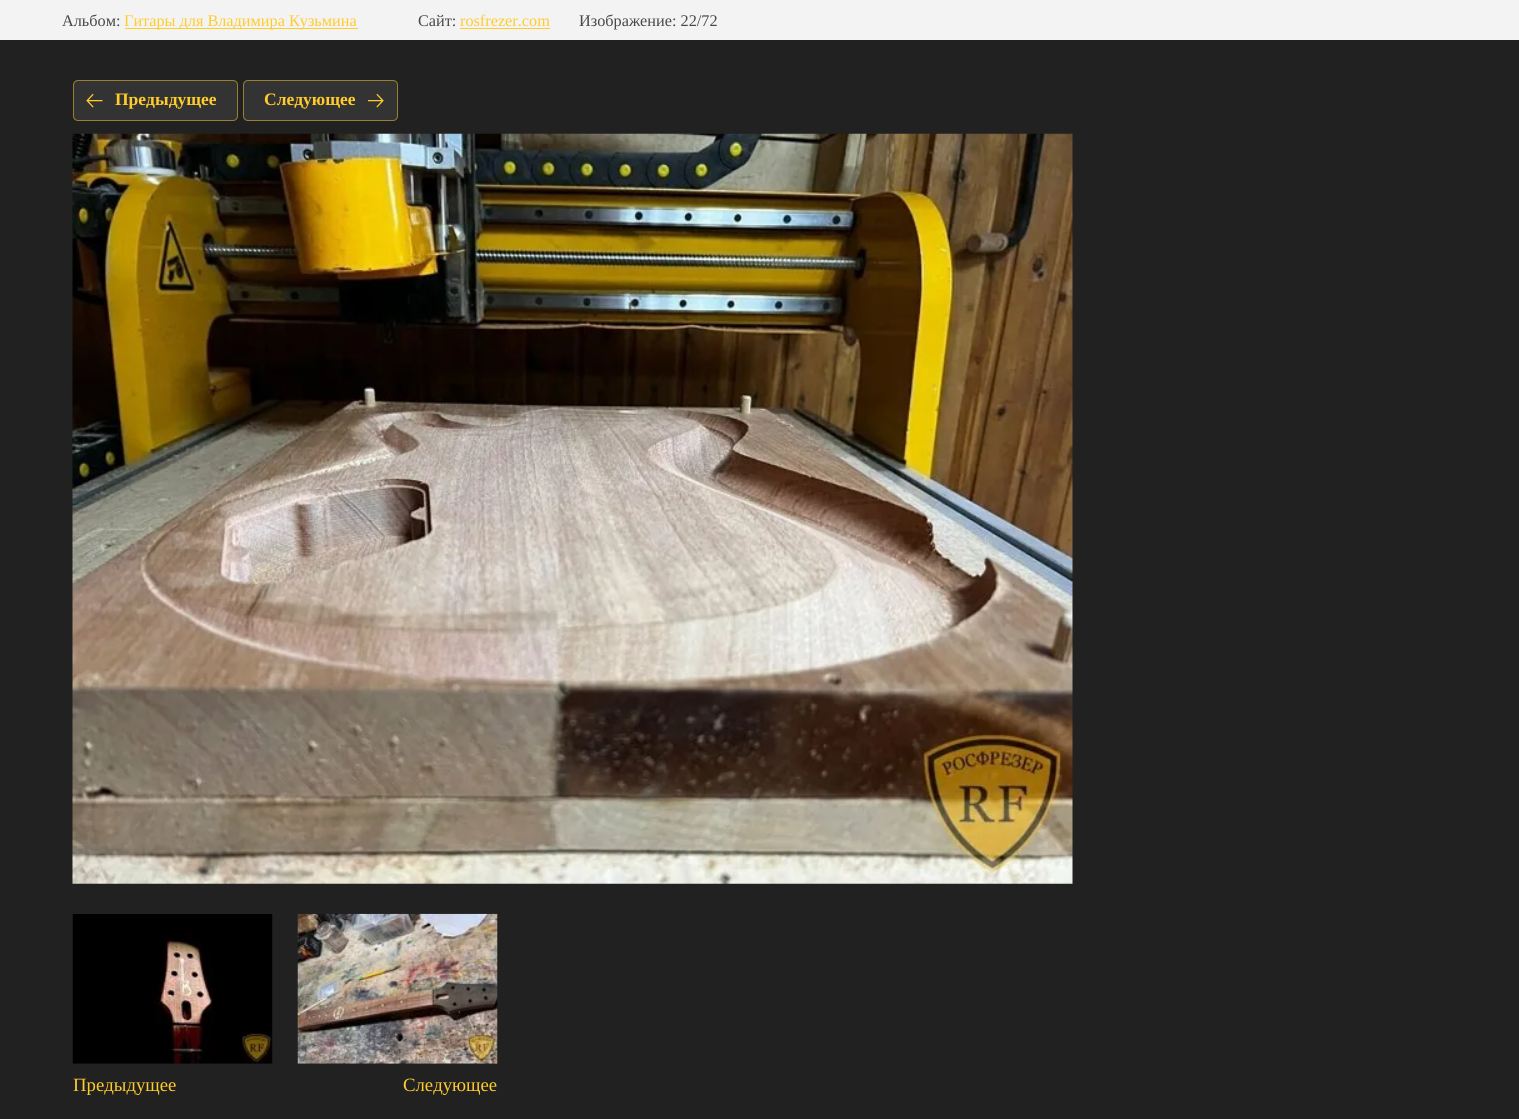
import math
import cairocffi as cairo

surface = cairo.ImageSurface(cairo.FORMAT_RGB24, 1519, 1119)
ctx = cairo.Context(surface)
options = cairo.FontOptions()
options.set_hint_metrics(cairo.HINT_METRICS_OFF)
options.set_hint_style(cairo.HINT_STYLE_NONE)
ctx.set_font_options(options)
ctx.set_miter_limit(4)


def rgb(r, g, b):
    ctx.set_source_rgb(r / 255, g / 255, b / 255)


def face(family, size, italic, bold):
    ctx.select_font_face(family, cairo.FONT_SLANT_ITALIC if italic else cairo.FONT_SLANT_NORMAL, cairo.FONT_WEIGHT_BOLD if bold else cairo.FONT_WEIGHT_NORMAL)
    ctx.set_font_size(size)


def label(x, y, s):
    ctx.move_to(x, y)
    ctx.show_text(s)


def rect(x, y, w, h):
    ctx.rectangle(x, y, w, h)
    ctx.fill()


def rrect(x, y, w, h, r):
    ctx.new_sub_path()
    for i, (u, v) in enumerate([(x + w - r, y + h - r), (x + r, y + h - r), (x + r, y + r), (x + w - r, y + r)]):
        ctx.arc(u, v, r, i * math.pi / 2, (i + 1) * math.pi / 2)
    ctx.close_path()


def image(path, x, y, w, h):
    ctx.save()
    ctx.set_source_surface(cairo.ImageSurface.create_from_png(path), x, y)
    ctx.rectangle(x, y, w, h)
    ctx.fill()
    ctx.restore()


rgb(33, 33, 33)
ctx.paint()
rgb(243, 243, 243)
rect(0, 0, 1519, 40)
face('Liberation Serif', 16.25, 0, 0)
rgb(72, 72, 72)
label(62, 26, 'Альбом:')
rgb(255, 204, 43)
rect(125, 28, 233, 1)
label(124, 26, 'Гитары для Владимира Кузьмина')
rgb(72, 72, 72)
label(418, 26, 'Сайт:')
rgb(255, 204, 43)
label(460, 26, 'rosfrezer.com')
rect(460, 28, 90, 1)
rgb(72, 72, 72)
label(579, 26, 'Изображение: 22/72')
rgb(51, 51, 51)
rrect(73, 80, 165, 41, 5)
ctx.fill()
rrect(73.5, 80.5, 164, 40, 4.5)
ctx.set_source_rgba(1, 0.8, 0.169, 0.5)
ctx.set_line_width(1)
ctx.stroke()
image('image0.png', 86, 94, 17, 14)
face('Liberation Serif', 17.5, 0, 1)
rgb(255, 204, 43)
label(115, 105, 'Предыдущее')
rgb(51, 51, 51)
rrect(243, 80, 155, 41, 5)
ctx.fill()
rrect(243.5, 80.5, 154, 40, 4.5)
ctx.set_source_rgba(1, 0.8, 0.169, 0.5)
ctx.stroke()
rgb(255, 204, 43)
label(264, 105, 'Следующее')
image('image1.png', 368, 94, 16, 14)
image('image2.png', 72, 133, 1001, 751)
image('image3.png', 72, 914, 201, 150)
face('Liberation Serif', 18.75, 0, 0)
label(73, 1091, 'Предыдущее')
image('image4.png', 297, 913, 201, 151)
label(403, 1091, 'Следующее')
surface.write_to_png('render.png')
